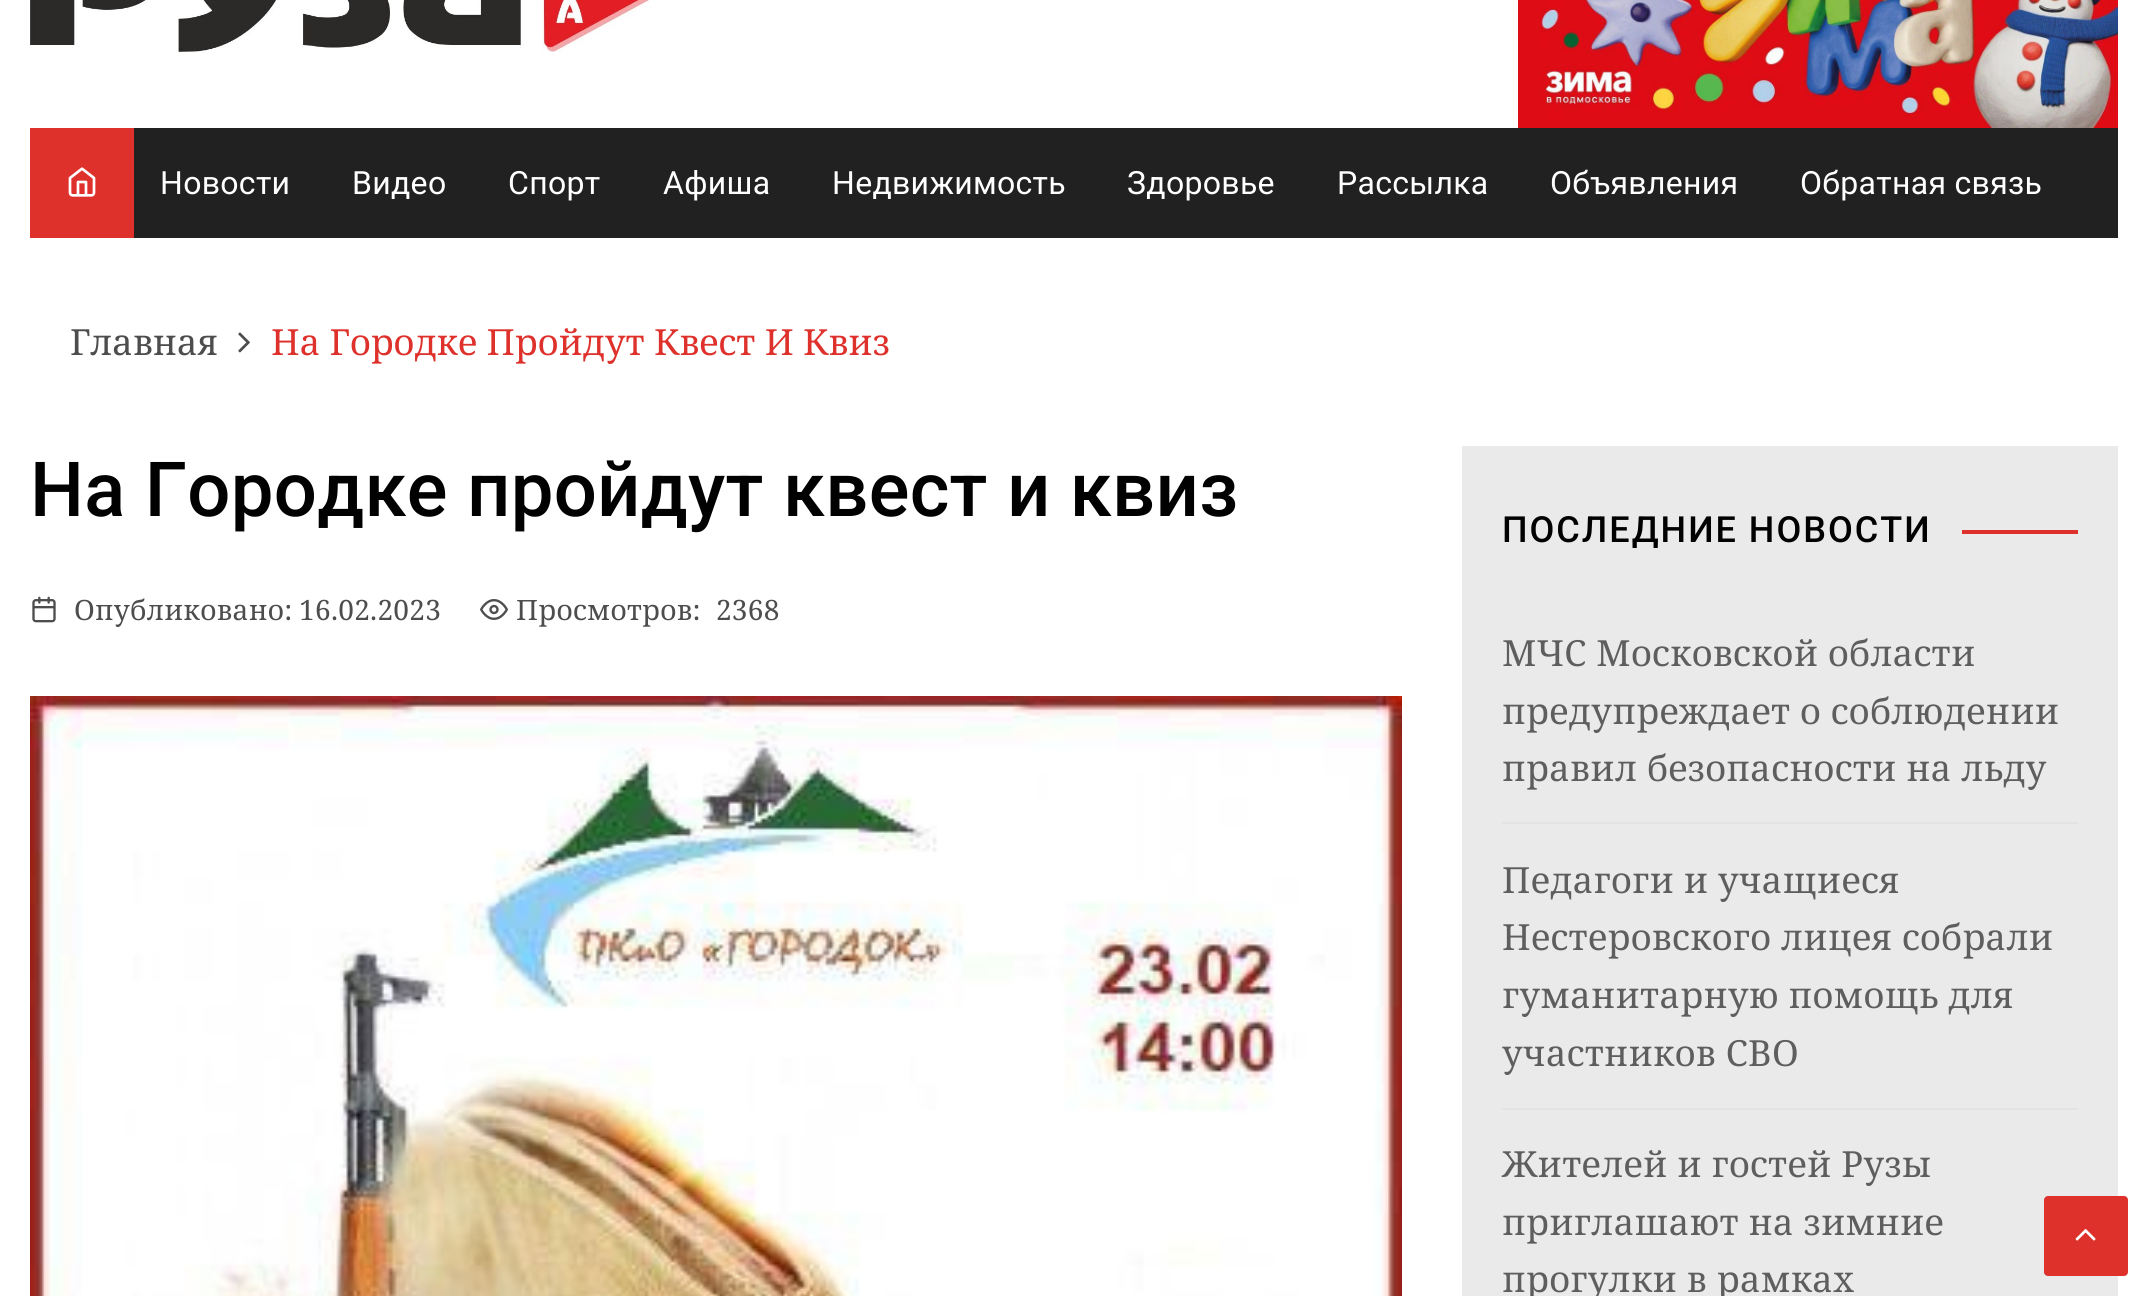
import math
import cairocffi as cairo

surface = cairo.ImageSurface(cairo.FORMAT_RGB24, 2147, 1296)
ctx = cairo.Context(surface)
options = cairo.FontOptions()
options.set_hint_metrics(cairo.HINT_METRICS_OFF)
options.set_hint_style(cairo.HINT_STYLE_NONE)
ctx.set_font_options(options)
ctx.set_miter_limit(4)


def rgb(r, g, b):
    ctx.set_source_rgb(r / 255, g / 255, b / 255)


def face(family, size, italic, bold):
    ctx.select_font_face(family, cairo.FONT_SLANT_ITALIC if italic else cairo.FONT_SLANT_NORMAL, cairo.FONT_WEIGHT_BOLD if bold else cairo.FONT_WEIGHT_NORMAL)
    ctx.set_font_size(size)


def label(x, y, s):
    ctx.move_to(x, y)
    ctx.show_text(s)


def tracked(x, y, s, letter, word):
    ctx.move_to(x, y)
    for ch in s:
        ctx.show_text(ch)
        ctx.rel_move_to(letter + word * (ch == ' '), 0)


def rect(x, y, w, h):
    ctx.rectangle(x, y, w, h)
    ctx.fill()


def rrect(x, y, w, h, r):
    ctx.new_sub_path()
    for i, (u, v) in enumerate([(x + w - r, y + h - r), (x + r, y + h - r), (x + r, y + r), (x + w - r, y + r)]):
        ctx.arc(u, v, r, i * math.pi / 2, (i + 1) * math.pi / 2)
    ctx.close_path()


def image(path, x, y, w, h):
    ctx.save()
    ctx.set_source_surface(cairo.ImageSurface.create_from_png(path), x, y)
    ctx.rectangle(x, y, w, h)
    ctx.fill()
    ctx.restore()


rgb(255, 255, 255)
ctx.paint()
image('image0.png', 30, 0, 621, 52)
image('image1.png', 1518, 0, 600, 128)
rgb(33, 33, 33)
rect(134, 128, 1984, 110)
rgb(223, 49, 44)
rect(30, 128, 104, 110)
image('image2.png', 68, 167, 28, 30)
face('Roboto', 32, 0, 0)
rgb(255, 255, 255)
tracked(160, 194, 'Новости', 0.3, 0)
tracked(352, 194, 'Видео', 0.3, 0)
tracked(508, 194, 'Спорт', 0.3, 0)
tracked(663, 194, 'Афиша', 0.3, 0)
tracked(832, 194, 'Недвижимость', 0.3, 0)
tracked(1127, 194, 'Здоровье', 0.3, 0)
tracked(1337, 194, 'Рассылка', 0.3, 0)
tracked(1550, 194, 'Объявления', 0.3, 0)
tracked(1800, 194, 'Обратная связь', 0.3, 0)
face('Noto Serif', 36, 0, 0)
rgb(77, 77, 77)
label(70, 355, 'Главная')
image('image3.png', 238, 332, 12, 21)
rgb(223, 49, 44)
label(271, 355, 'На Городке Пройдут Квест И Квиз')
face('Roboto Medium', 76, 0, 0)
rgb(1, 1, 1)
tracked(30, 516, 'На Городке пройдут квест и квиз', 0.3, 0)
image('image4.png', 32, 596, 24, 27)
face('Noto Serif', 28, 0, 0)
rgb(77, 77, 77)
tracked(74, 620, 'Опубликовано:', 0.3, 0)
tracked(299, 620, '16.02.2023', 0.3, 0)
image('image5.png', 480, 599, 28, 21)
tracked(516, 620, 'Просмотров:  2368', 0.3, 0)
image('image6.png', 30, 696, 1372, 600)
rgb(234, 234, 234)
rect(1462, 446, 656, 850)
ctx.save()
ctx.rectangle(1502, 512, 576, 36)
ctx.clip()
face('Roboto Medium', 36, 0, 0)
rgb(1, 1, 1)
tracked(1502, 542, 'ПОСЛЕДНИЕ НОВОСТИ', 2, 0)
ctx.restore()
rgb(223, 49, 44)
rect(1962, 530, 116, 4)
rgb(227, 227, 227)
rect(1502, 822, 576, 2)
face('Noto Serif', 36, 0, 0)
rgb(94, 94, 94)
tracked(1502, 666, 'МЧС Московской области', 0.3, 0)
tracked(1502, 724, 'предупреждает о соблюдении', 0.3, 0)
tracked(1502, 781, 'правил безопасности на льду', 0.3, 0)
rgb(227, 227, 227)
rect(1502, 1108, 576, 2)
rgb(94, 94, 94)
tracked(1502, 893, 'Педагоги и учащиеся', 0.3, 0)
tracked(1502, 950, 'Нестеровского лицея собрали', 0.3, 0)
tracked(1502, 1008, 'гуманитарную помощь для', 0.3, 0)
tracked(1502, 1066, 'участников СВО', 0.3, 0)
tracked(1502, 1177, 'Жителей и гостей Рузы', 0.3, 0)
tracked(1502, 1235, 'приглашают на зимние', 0.3, 0)
tracked(1502, 1292, 'прогулки в рамках', 0.3, 0)
rgb(223, 49, 44)
rrect(2044, 1196, 84, 80, 4)
ctx.fill()
image('image7.png', 2075, 1229, 21, 12)
surface.write_to_png('render.png')
